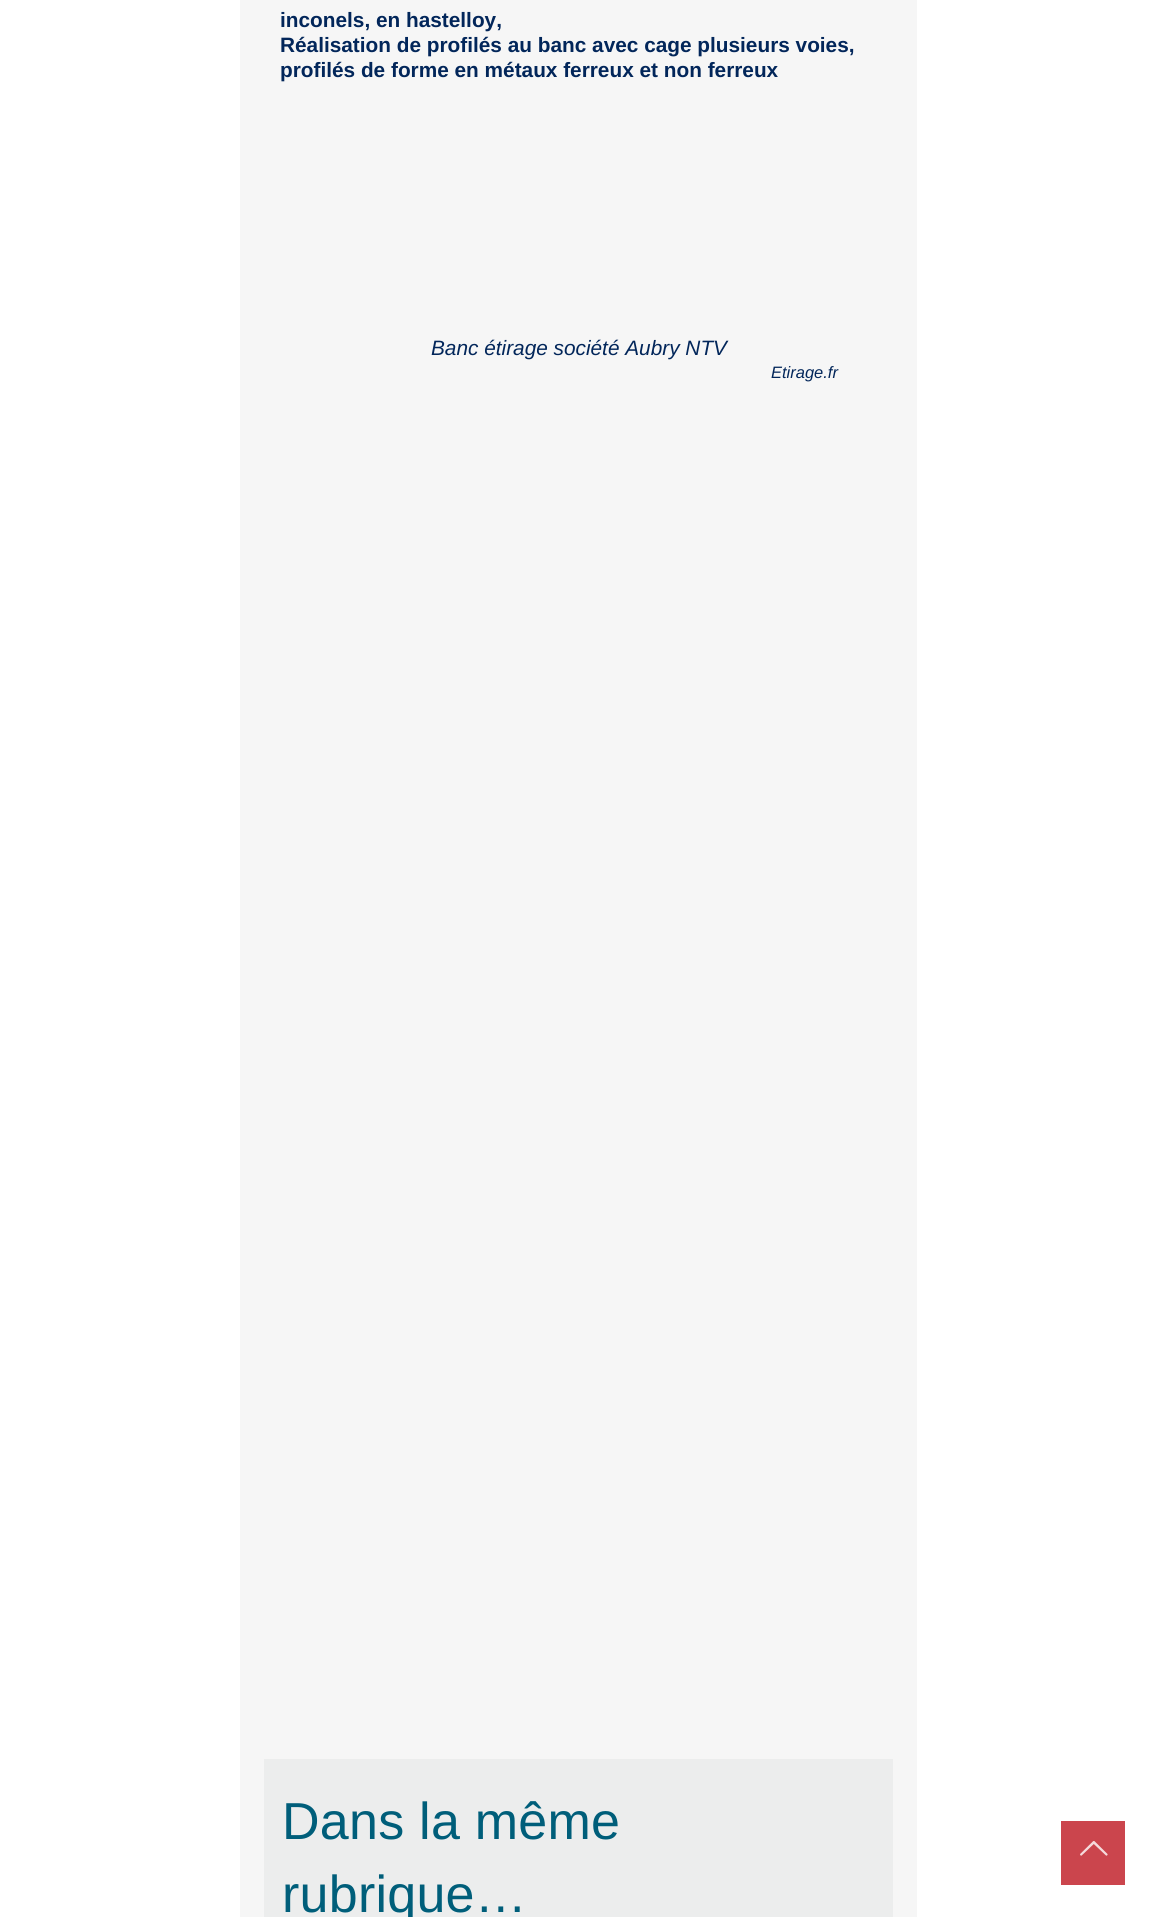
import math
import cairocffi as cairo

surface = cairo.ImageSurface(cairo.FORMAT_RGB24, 1157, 1917)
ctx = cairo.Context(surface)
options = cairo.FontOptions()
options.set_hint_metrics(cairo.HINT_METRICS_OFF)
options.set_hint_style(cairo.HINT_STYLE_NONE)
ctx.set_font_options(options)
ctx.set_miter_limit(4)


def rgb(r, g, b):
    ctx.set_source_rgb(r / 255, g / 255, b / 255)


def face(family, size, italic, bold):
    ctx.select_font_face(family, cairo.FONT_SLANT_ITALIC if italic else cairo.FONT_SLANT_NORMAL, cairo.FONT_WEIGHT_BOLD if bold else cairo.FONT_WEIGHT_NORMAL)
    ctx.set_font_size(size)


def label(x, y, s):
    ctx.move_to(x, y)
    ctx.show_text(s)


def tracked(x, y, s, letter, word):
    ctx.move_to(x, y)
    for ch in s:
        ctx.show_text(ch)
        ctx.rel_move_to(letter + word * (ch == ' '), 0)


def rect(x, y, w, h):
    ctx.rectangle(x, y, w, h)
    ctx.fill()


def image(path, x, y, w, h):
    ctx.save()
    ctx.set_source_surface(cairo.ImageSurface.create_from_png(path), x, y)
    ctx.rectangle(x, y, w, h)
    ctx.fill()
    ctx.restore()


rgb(246, 246, 246)
ctx.paint()
rgb(255, 255, 255)
rect(0, 0, 240, 1917)
face('Liberation Sans', 20.8, 0, 1)
rgb(2, 38, 90)
label(280, 27, 'inconels, en hastelloy,')
label(280, 52, 'Réalisation de profilés au banc avec cage plusieurs voies,')
label(280, 77, 'profilés de forme en métaux ferreux et non ferreux')
face('Liberation Sans', 20.8, 1, 0)
label(431, 355, 'Banc étirage société Aubry NTV')
face('Liberation Sans', 16.5, 1, 0)
label(771, 378, 'Etirage.fr')
rgb(236, 237, 237)
rect(264, 1759, 629, 158)
face('Liberation Sans', 52, 0, 0)
rgb(0, 94, 122)
tracked(282, 1839, 'Dans la même', 0.25, 0)
tracked(282, 1912, 'rubrique…', 0.25, 0)
rgb(255, 255, 255)
rect(917, 0, 240, 1917)
rgb(203, 69, 77)
rect(1061, 1821, 64, 64)
image('image0.png', 1080, 1841, 28, 15)
surface.write_to_png('render.png')
